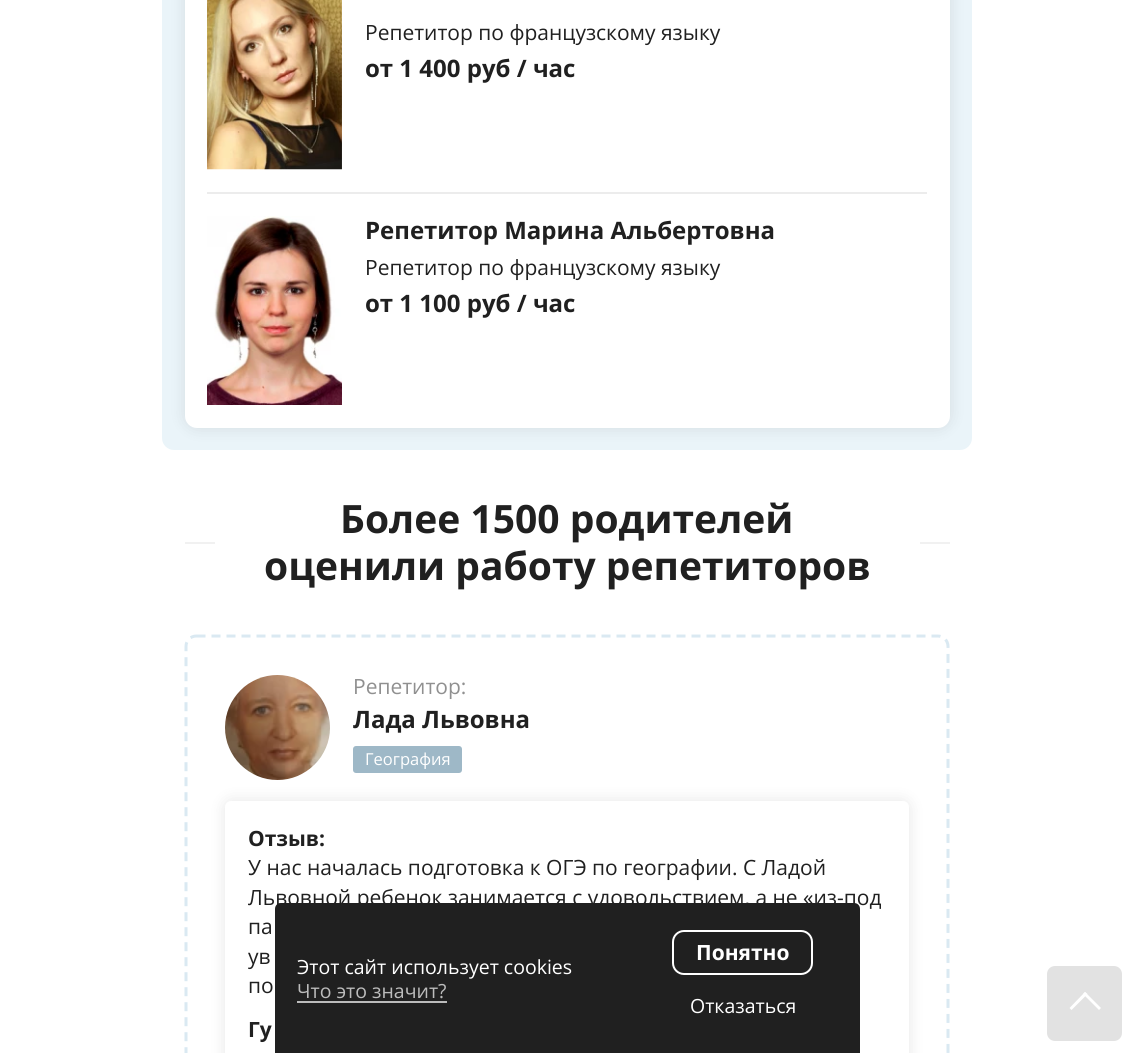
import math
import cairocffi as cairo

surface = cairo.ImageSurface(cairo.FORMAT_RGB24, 1134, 1053)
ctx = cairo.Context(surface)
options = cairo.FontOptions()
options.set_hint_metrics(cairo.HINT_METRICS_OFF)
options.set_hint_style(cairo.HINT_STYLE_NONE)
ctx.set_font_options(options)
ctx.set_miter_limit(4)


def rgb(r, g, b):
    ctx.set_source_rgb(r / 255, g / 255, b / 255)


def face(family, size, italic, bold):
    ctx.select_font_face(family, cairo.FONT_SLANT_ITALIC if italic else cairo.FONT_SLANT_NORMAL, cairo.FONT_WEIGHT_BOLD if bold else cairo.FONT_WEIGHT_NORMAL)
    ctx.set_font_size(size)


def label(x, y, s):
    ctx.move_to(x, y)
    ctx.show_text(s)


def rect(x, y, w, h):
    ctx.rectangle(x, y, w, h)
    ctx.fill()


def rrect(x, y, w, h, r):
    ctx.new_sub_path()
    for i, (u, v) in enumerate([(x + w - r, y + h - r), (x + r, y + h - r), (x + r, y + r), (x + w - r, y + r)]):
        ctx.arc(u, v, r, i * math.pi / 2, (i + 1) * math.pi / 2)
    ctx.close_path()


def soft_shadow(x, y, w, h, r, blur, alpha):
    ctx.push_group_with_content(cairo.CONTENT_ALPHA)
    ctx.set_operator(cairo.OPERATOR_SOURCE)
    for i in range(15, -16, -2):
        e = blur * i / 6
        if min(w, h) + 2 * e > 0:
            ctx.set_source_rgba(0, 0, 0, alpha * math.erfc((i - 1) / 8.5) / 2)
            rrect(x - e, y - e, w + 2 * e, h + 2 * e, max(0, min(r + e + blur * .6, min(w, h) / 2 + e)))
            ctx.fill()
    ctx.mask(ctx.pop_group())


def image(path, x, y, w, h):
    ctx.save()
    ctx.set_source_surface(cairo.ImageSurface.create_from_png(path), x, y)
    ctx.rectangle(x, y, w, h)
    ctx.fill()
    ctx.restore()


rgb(255, 255, 255)
ctx.paint()
rgb(234, 244, 249)
rrect(162, -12, 810, 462, 12)
ctx.fill()
rgb(0, 0, 0)
soft_shadow(185, -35, 765, 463, 12, 7.5, 0.1)
rgb(255, 255, 255)
rrect(185, -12, 765, 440, 12)
ctx.fill()
image('image0.png', 207, 0, 135, 170)
face('Open Sans', 21, 0, 0)
rgb(32, 32, 32)
label(365, 40, 'Репетитор по французскому языку')
face('Open Sans', 24, 0, 1)
label(365, 77, 'от 1 400 руб / час')
rgb(236, 236, 236)
rect(207, 192, 720, 2)
image('image1.png', 207, 216, 135, 189)
rgb(32, 32, 32)
label(365, 239, 'Репетитор Марина Альбертовна')
face('Open Sans', 21, 0, 0)
label(365, 275, 'Репетитор по французскому языку')
face('Open Sans', 24, 0, 1)
label(365, 312, 'от 1 100 руб / час')
rgb(241, 241, 241)
rect(185, 542, 30, 2)
face('Open Sans', 39, 0, 1)
rgb(32, 32, 32)
label(340, 533, 'Более 1500 родителей')
rgb(241, 241, 241)
rect(920, 542, 30, 2)
rgb(32, 32, 32)
label(264, 580, 'оценили работу репетиторов')
ctx.new_path()
ctx.move_to(196.5, 636)
ctx.line_to(937.5, 636)
ctx.curve_to(943.5, 636, 948, 640.5, 948, 646.5)
ctx.line_to(948, 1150.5)
ctx.curve_to(948, 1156.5, 943.5, 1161, 937.5, 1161)
ctx.line_to(196.5, 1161)
ctx.curve_to(190.5, 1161, 186, 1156.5, 186, 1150.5)
ctx.line_to(186, 646.5)
ctx.curve_to(186, 640.5, 190.5, 636, 196.5, 636)
ctx.close_path()
rgb(218, 233, 242)
ctx.set_line_width(3)
ctx.set_dash([9, 6])
ctx.stroke()
image('image2.png', 225, 675, 105, 105)
face('Open Sans', 21, 0, 0)
rgb(144, 144, 144)
label(353, 694, 'Репетитор:')
face('Open Sans', 24, 0, 1)
rgb(32, 32, 32)
label(353, 728, 'Лада Львовна')
rgb(158, 184, 199)
rrect(353, 746, 109, 27, 3)
ctx.fill()
face('Open Sans', 16.5, 0, 0)
rgb(255, 255, 255)
label(365, 765, 'География')
rgb(0, 0, 0)
soft_shadow(225, 801, 684, 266, 6, 7.5, 0.1)
rgb(255, 255, 255)
rrect(225, 801, 684, 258, 6)
ctx.fill()
face('Open Sans', 21, 0, 1)
rgb(32, 32, 32)
label(248, 846, 'Отзыв:')
face('Open Sans', 21, 0, 0)
label(248, 875, 'У нас началась подготовка к ОГЭ по географии. С Ладой')
label(248, 905, 'Львовной ребенок занимается с удовольствием, а не «из-под')
label(248, 934, 'па')
label(248, 964, 'ув')
label(248, 993, 'по')
face('Open Sans', 21, 0, 1)
label(248, 1037, 'Гу')
ctx.new_path()
ctx.move_to(281, 903)
ctx.line_to(854, 903)
ctx.curve_to(857.5, 903, 860, 905.5, 860, 909)
ctx.line_to(860, 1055)
ctx.line_to(275, 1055)
ctx.line_to(275, 909)
ctx.curve_to(275, 905.5, 277.5, 903, 281, 903)
ctx.close_path()
ctx.fill()
face('Open Sans', 19.5, 0, 0)
rgb(255, 255, 255)
label(297, 974, 'Этот сайт использует cookies')
rgb(188, 188, 188)
label(297, 998, 'Что это значит?')
rect(297, 1001, 150, 2)
rrect(673, 931, 139, 43, 11)
rgb(255, 255, 255)
ctx.set_line_width(2)
ctx.set_dash([])
ctx.stroke()
face('Open Sans', 21, 0, 1)
label(696, 960, 'Понятно')
face('Open Sans', 19.5, 0, 0)
label(690, 1013, 'Отказаться')
rgb(226, 226, 226)
rrect(1047, 966, 75, 75, 8)
ctx.fill()
rgb(255, 255, 255)
ctx.new_path()
ctx.move_to(1069.5, 1008)
ctx.line_to(1085, 992)
ctx.line_to(1087.5, 994)
ctx.line_to(1071.5, 1010)
ctx.close_path()
ctx.fill()
ctx.new_path()
ctx.move_to(1083, 994)
ctx.line_to(1085, 992)
ctx.line_to(1101, 1008)
ctx.line_to(1099, 1010)
ctx.close_path()
ctx.fill()
surface.write_to_png('render.png')
